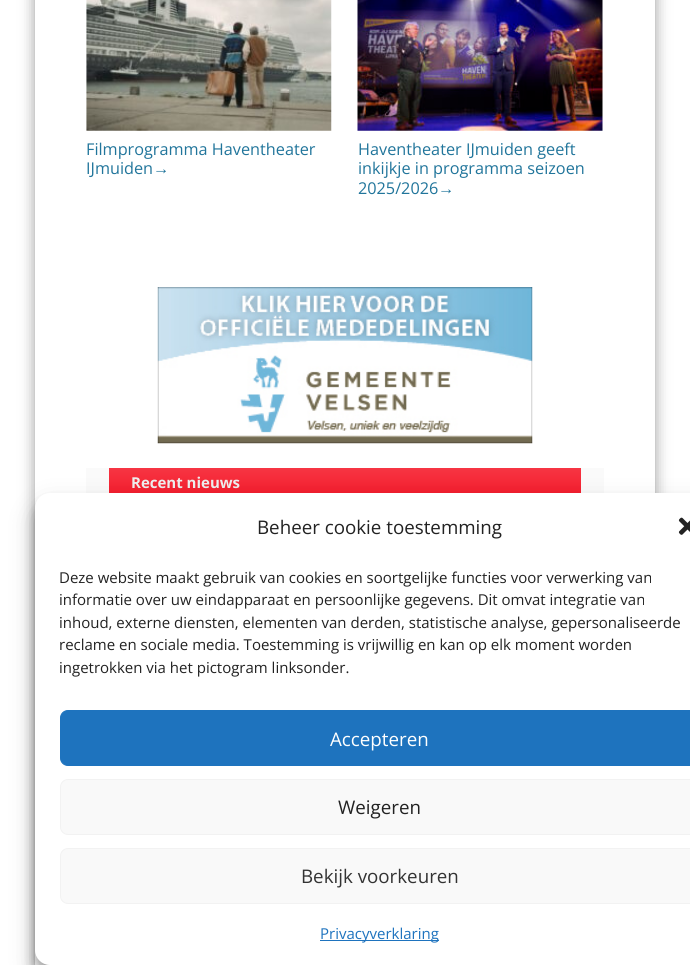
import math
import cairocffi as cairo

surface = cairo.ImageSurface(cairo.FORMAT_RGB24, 690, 965)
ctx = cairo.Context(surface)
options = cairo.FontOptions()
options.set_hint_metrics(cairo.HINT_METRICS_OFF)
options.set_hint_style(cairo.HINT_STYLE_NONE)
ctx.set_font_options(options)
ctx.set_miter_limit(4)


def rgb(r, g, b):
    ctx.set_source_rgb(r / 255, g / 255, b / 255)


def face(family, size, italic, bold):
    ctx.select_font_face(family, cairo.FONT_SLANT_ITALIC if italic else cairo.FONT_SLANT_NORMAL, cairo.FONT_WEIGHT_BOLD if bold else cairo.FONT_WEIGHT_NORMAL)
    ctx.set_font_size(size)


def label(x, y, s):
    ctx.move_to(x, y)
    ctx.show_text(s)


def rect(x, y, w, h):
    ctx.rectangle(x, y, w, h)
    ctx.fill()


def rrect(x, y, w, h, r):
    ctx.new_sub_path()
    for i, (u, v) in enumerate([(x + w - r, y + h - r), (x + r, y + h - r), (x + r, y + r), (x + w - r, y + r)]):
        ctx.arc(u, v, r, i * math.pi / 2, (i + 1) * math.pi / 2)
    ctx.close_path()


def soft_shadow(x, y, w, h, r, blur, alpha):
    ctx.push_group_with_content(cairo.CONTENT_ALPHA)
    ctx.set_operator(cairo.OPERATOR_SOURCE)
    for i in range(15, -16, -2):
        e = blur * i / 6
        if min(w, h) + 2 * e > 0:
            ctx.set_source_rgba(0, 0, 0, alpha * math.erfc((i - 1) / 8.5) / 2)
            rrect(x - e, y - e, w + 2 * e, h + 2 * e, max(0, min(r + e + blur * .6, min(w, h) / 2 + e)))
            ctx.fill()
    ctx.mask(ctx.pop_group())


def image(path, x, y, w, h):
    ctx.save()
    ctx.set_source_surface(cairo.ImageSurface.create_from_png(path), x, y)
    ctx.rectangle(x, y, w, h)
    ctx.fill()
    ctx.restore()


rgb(255, 255, 255)
ctx.paint()
ctx.save()
ctx.set_fill_rule(cairo.FILL_RULE_EVEN_ODD)
ctx.new_path()
ctx.move_to(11, 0)
ctx.line_to(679, 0)
ctx.line_to(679, 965)
ctx.line_to(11, 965)
ctx.close_path()
ctx.move_to(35, -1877)
ctx.line_to(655, -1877)
ctx.line_to(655, 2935)
ctx.line_to(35, 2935)
ctx.close_path()
ctx.clip()
rgb(0, 0, 0)
soft_shadow(35, -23, 620, 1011, 0, 7.5, 0.4)
ctx.restore()
image('image0.png', 86, 0, 246, 131)
face('Open Sans', 16.25, 0, 0)
rgb(33, 117, 155)
label(86, 155, 'Filmprogramma Haventheater')
label(86, 174, 'IJmuiden')
face('Liberation Sans', 16.25, 0, 0)
label(153, 174, '→')
image('image1.png', 357, 0, 246, 131)
face('Open Sans', 16.25, 0, 0)
label(358, 155, 'Haventheater IJmuiden geeft')
label(358, 174, 'inkijkje in programma seizoen')
label(358, 194, '2025/2026')
face('Liberation Sans', 16.25, 0, 0)
label(438, 194, '→')
image('image2.png', 157, 287, 376, 157)
rgb(250, 250, 250)
rect(86, 468, 518, 25)
gradient = cairo.LinearGradient(345, 468, 345, 499)
gradient.add_color_stop_rgba(0, 0.965, 0.208, 0.263, 1)
gradient.add_color_stop_rgba(1, 0.961, 0.098, 0.161, 1)
ctx.set_source(gradient)
rect(109, 468, 472, 25)
face('Open Sans', 15, 0, 1)
rgb(238, 238, 238)
label(131, 488, 'Recent nieuws')
rgb(0, 0, 0)
soft_shadow(35, 500, 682, 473, 15, 4, 0.23)
soft_shadow(35, 505, 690, 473, 15, 12.5, 0.19)
rgb(255, 255, 255)
rrect(35, 493, 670, 472, 15)
ctx.fill()
face('Open Sans', 18.75, 0, 0)
rgb(34, 34, 34)
label(257, 534, 'Beheer cookie toestemming')
image('image3.png', 678, 517, 12, 18)
face('Open Sans', 15, 0, 0)
label(59, 583, 'Deze website maakt gebruik van cookies en soortgelijke functies voor verwerking van')
label(59, 605, 'informatie over uw eindapparaat en persoonlijke gegevens. Dit omvat integratie van')
label(59, 628, 'inhoud, externe diensten, elementen van derden, statistische analyse, gepersonaliseerde')
label(59, 650, 'reclame en sociale media. Toestemming is vrijwillig en kan op elk moment worden')
label(59, 673, 'ingetrokken via het pictogram linksonder.')
rgb(30, 115, 190)
rrect(60.5, 710.5, 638, 55, 7.5)
ctx.fill_preserve()
ctx.set_line_width(1)
ctx.stroke()
face('Open Sans', 18.75, 0, 0)
rgb(255, 255, 255)
label(330, 746, 'Accepteren')
rgb(249, 249, 249)
rrect(60.5, 779.5, 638, 55, 7.5)
ctx.fill_preserve()
rgb(242, 242, 242)
ctx.stroke()
rgb(34, 34, 34)
label(338, 814, 'Weigeren')
rgb(249, 249, 249)
rrect(60.5, 848.5, 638, 55, 7.5)
ctx.fill_preserve()
rgb(242, 242, 242)
ctx.stroke()
rgb(51, 51, 51)
label(301, 883, 'Bekijk voorkeuren')
rgb(30, 115, 190)
rect(320, 940, 119, 1)
face('Open Sans', 15, 0, 0)
label(320, 939, 'Privacyverklaring')
surface.write_to_png('render.png')
